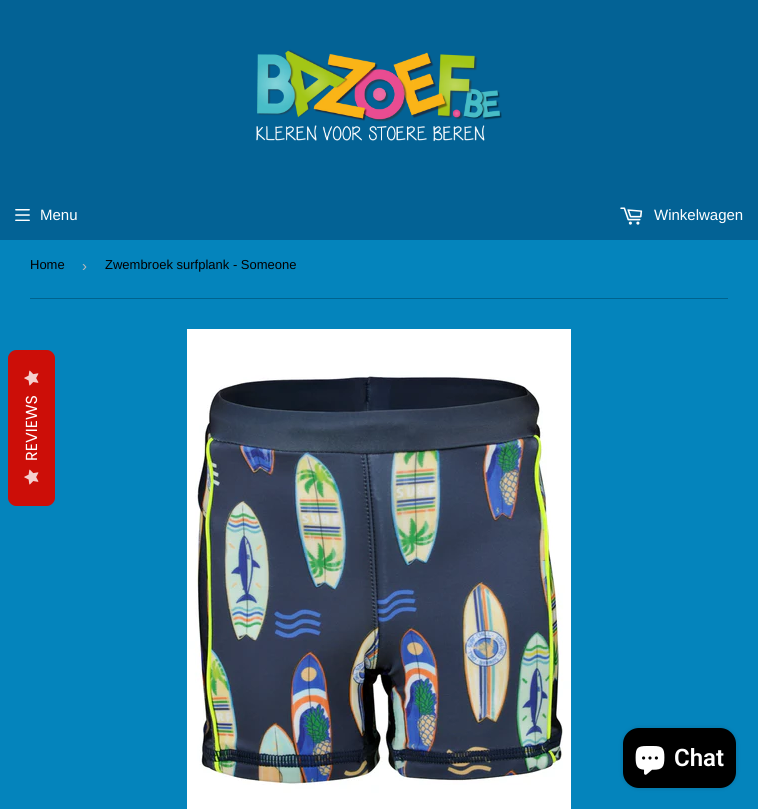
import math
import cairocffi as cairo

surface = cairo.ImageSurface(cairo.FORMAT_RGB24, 758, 809)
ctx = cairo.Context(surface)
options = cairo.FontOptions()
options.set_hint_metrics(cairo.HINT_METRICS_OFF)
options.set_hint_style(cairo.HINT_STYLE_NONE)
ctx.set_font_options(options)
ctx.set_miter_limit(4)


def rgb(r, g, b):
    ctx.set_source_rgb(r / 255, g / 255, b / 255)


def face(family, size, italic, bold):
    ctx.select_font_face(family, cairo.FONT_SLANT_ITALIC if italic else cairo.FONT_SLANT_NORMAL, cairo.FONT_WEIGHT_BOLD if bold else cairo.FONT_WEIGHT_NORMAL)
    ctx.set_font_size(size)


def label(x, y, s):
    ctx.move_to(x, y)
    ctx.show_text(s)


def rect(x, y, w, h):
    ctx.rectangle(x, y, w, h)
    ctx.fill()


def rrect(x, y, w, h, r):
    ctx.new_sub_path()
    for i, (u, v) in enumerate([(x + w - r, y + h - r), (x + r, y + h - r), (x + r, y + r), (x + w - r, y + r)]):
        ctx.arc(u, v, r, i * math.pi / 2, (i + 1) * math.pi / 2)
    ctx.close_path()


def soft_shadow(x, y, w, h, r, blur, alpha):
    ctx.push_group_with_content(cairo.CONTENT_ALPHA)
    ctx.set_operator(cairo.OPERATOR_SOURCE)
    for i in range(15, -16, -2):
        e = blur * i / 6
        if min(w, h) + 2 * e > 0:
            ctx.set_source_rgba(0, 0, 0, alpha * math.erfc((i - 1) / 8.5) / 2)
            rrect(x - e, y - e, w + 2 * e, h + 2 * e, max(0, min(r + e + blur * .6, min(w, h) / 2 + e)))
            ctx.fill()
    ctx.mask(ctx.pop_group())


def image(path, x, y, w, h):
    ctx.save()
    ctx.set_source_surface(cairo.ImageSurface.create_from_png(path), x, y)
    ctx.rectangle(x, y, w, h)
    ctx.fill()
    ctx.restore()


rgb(4, 132, 188)
ctx.paint()
rgb(3, 98, 149)
rect(0, 0, 758, 240)
image('image0.png', 256, 49, 246, 93)
image('image1.png', 15, 209, 15, 12)
face('Liberation Sans', 15, 0, 0)
rgb(255, 255, 255)
label(40, 220, 'Menu')
image('image2.png', 620, 207, 23, 18)
label(654, 220, 'Winkelwagen')
rgb(0, 99, 142)
rect(30, 298, 698, 1)
face('Liberation Sans', 13, 0, 0)
rgb(0, 0, 0)
label(30, 269, 'Home')
face('Liberation Sans', 15, 0, 0)
rgb(187, 187, 187)
label(82, 271, '›')
face('Liberation Sans', 13, 0, 0)
rgb(0, 0, 0)
label(105, 269, 'Zwembroek surfplank - Someone')
image('image3.png', 187, 329, 384, 480)
rgb(204, 14, 8)
ctx.new_path()
ctx.move_to(8, 498)
ctx.line_to(8, 358)
ctx.curve_to(8, 354, 12, 350, 16, 350)
ctx.line_to(47, 350)
ctx.curve_to(51, 350, 55, 354, 55, 358)
ctx.line_to(55, 498)
ctx.curve_to(55, 502, 51, 506, 47, 506)
ctx.line_to(16, 506)
ctx.curve_to(12, 506, 8, 502, 8, 498)
ctx.close_path()
ctx.fill()
image('image4.png', 24, 370, 15, 16)
face('Poppins', 16, 0, 0)
rgb(255, 255, 255)
ctx.save()
ctx.translate(37, 461)
ctx.rotate(-90 * math.pi / 180)
label(0, 0, 'REVIEWS')
ctx.restore()
image('image4.png', 24, 469, 15, 16)
rgb(0, 0, 0)
soft_shadow(623, 728, 113, 60, 16, 2.5, 0.15)
rgb(0, 0, 0)
rrect(623, 728, 113, 60, 16)
ctx.fill()
image('image5.png', 635, 746, 30, 29)
face('Roboto SemiBold', 24, 0, 0)
rgb(255, 255, 255)
label(674, 766, 'Chat')
surface.write_to_png('render.png')
